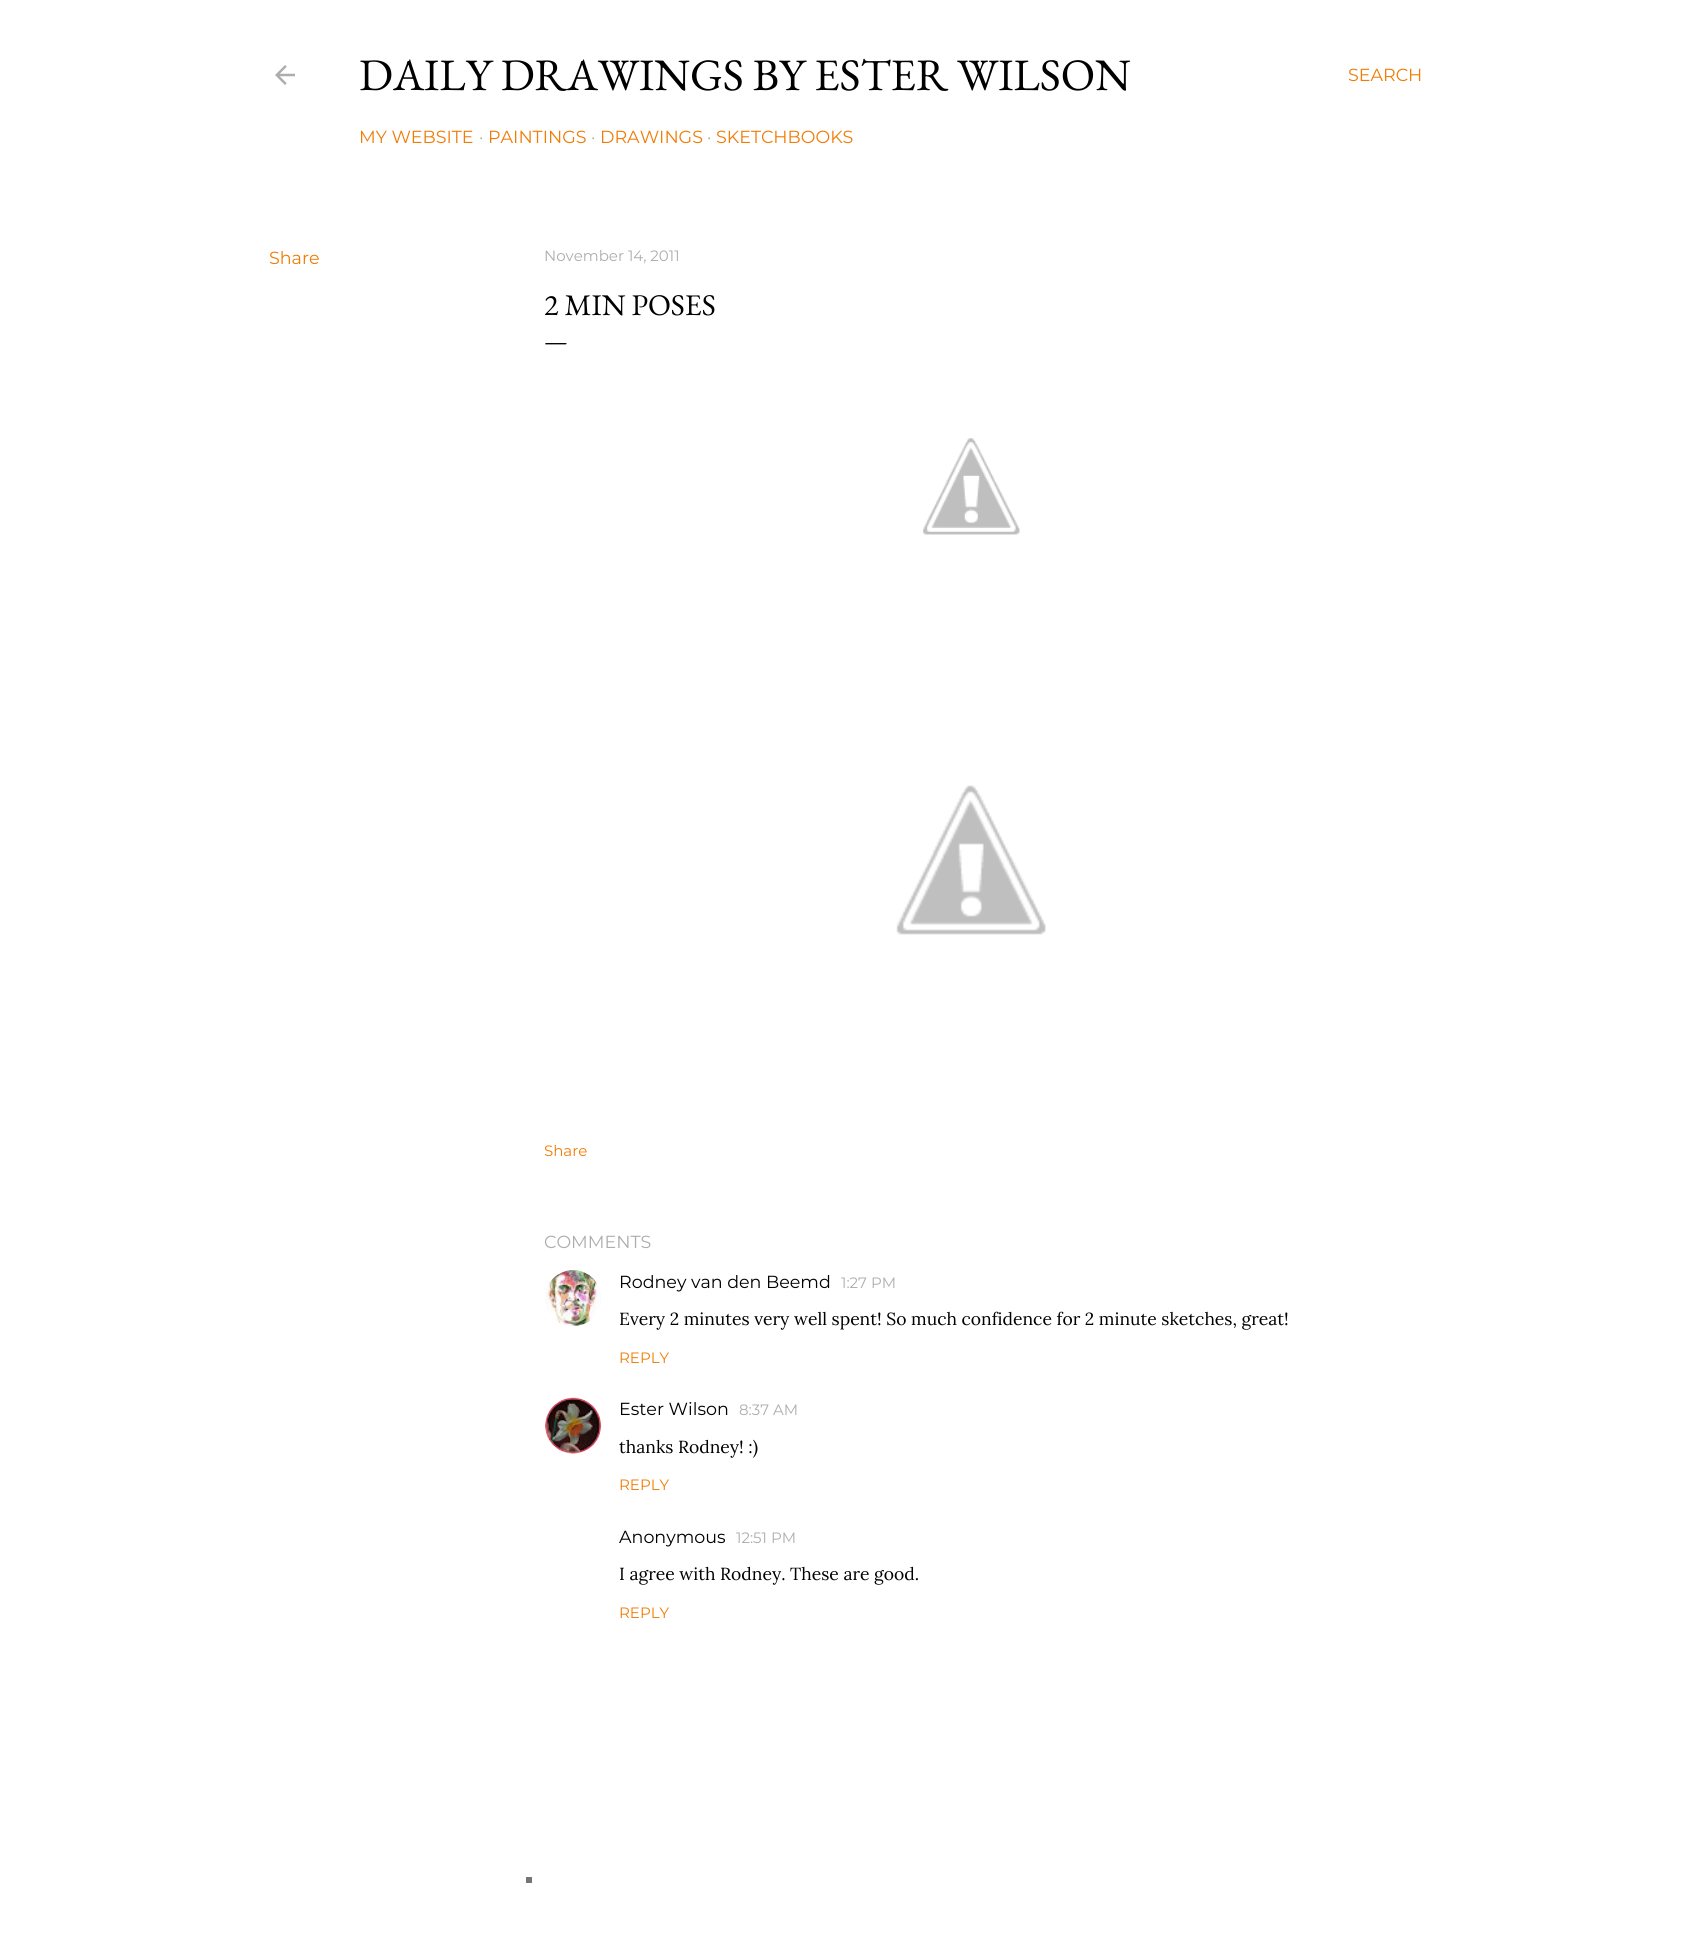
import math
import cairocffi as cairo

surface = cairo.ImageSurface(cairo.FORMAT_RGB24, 1691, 1951)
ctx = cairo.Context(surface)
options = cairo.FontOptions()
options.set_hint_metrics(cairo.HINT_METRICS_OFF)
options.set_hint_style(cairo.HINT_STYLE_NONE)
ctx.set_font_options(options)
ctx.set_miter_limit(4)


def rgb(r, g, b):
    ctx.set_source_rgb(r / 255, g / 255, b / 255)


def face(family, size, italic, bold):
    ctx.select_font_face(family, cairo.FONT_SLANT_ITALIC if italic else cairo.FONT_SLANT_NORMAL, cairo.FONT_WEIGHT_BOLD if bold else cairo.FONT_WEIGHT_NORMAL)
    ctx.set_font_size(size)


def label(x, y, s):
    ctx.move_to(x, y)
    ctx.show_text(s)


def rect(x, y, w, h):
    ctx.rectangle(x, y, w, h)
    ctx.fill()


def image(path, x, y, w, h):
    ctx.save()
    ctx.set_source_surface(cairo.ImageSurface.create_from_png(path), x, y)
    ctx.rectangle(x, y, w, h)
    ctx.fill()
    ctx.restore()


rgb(255, 255, 255)
ctx.paint()
image('image0.png', 275, 65, 20, 20)
face('EB Garamond', 45, 0, 0)
rgb(0, 0, 0)
label(359, 90, 'DAILY DRAWINGS BY ESTER WILSON')
face('Montserrat', 17.5, 0, 0)
rgb(240, 124, 5)
label(359, 143, 'MY WEBSITE')
rgb(173, 173, 173)
label(479, 143, '·')
rgb(240, 124, 5)
label(488, 143, 'PAINTINGS')
rgb(173, 173, 173)
label(591, 143, '·')
rgb(240, 124, 5)
label(600, 143, 'DRAWINGS')
rgb(173, 173, 173)
label(707, 143, '·')
rgb(240, 124, 5)
label(716, 143, 'SKETCHBOOKS')
label(1348, 81, 'SEARCH')
label(269, 264, 'Share')
face('Montserrat', 15, 0, 0)
rgb(173, 173, 173)
label(544, 261, 'November 14, 2011')
face('EB Garamond', 30, 0, 0)
rgb(0, 0, 0)
label(544, 315, '2 MIN POSES')
face('EB Garamond', 25, 0, 0)
label(544, 349, '—')
image('image1.png', 923, 438, 97, 97)
image('image2.png', 896, 785, 150, 150)
face('Montserrat', 15, 0, 0)
rgb(240, 124, 5)
label(544, 1156, 'Share')
face('Montserrat', 17.5, 0, 0)
rgb(173, 173, 173)
label(544, 1248, 'COMMENTS')
image('image3.png', 545, 1270, 56, 56)
rgb(0, 0, 0)
label(619, 1288, 'Rodney van den Beemd')
face('Montserrat', 15, 0, 0)
rgb(173, 173, 173)
label(841, 1288, '1:27 PM')
face('Lora', 17.5, 0, 0)
rgb(0, 0, 0)
label(619, 1325, 'Every 2 minutes very well spent! So much confidence for 2 minute sketches, great!')
face('Montserrat', 15, 0, 0)
rgb(240, 124, 5)
label(619, 1363, 'REPLY')
image('image4.png', 545, 1397, 57, 57)
face('Montserrat', 17.5, 0, 0)
rgb(0, 0, 0)
label(619, 1415, 'Ester Wilson')
face('Montserrat', 15, 0, 0)
rgb(173, 173, 173)
label(739, 1415, '8:37 AM')
face('Lora', 17.5, 0, 0)
rgb(0, 0, 0)
label(619, 1453, 'thanks Rodney! :)')
face('Montserrat', 15, 0, 0)
rgb(240, 124, 5)
label(619, 1490, 'REPLY')
face('Montserrat', 17.5, 0, 0)
rgb(0, 0, 0)
label(619, 1543, 'Anonymous')
face('Montserrat', 15, 0, 0)
rgb(173, 173, 173)
label(736, 1543, '12:51 PM')
face('Lora', 17.5, 0, 0)
rgb(0, 0, 0)
label(619, 1580, 'I agree with Rodney. These are good.')
face('Montserrat', 15, 0, 0)
rgb(240, 124, 5)
label(619, 1618, 'REPLY')
rgb(117, 117, 117)
rect(526, 1877, 6, 6)
surface.write_to_png('render.png')
